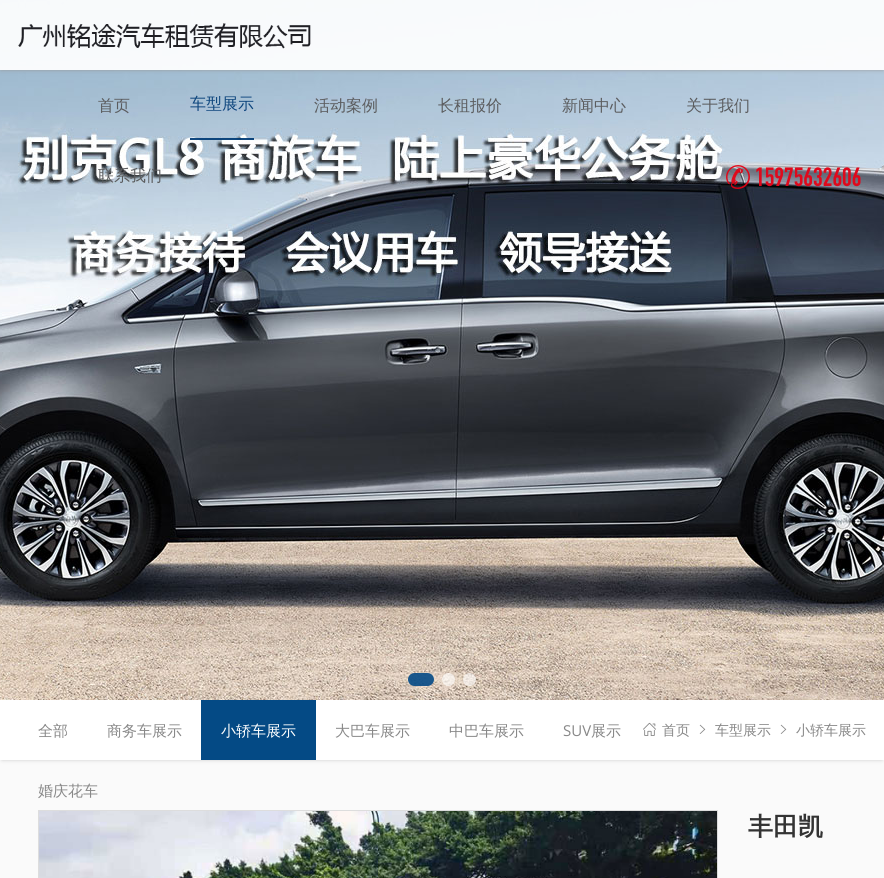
import math
import cairocffi as cairo

surface = cairo.ImageSurface(cairo.FORMAT_RGB24, 884, 878)
ctx = cairo.Context(surface)
options = cairo.FontOptions()
options.set_hint_metrics(cairo.HINT_METRICS_OFF)
options.set_hint_style(cairo.HINT_STYLE_NONE)
ctx.set_font_options(options)
ctx.set_miter_limit(4)


def rgb(r, g, b):
    ctx.set_source_rgb(r / 255, g / 255, b / 255)


def face(family, size, italic, bold):
    ctx.select_font_face(family, cairo.FONT_SLANT_ITALIC if italic else cairo.FONT_SLANT_NORMAL, cairo.FONT_WEIGHT_BOLD if bold else cairo.FONT_WEIGHT_NORMAL)
    ctx.set_font_size(size)


def label(x, y, s):
    ctx.move_to(x, y)
    ctx.show_text(s)


def rect(x, y, w, h):
    ctx.rectangle(x, y, w, h)
    ctx.fill()


def rrect(x, y, w, h, r):
    ctx.new_sub_path()
    for i, (u, v) in enumerate([(x + w - r, y + h - r), (x + r, y + h - r), (x + r, y + r), (x + w - r, y + r)]):
        ctx.arc(u, v, r, i * math.pi / 2, (i + 1) * math.pi / 2)
    ctx.close_path()


def soft_shadow(x, y, w, h, r, blur, alpha):
    ctx.push_group_with_content(cairo.CONTENT_ALPHA)
    ctx.set_operator(cairo.OPERATOR_SOURCE)
    for i in range(15, -16, -2):
        e = blur * i / 6
        if min(w, h) + 2 * e > 0:
            ctx.set_source_rgba(0, 0, 0, alpha * math.erfc((i - 1) / 8.5) / 2)
            rrect(x - e, y - e, w + 2 * e, h + 2 * e, max(0, min(r + e + blur * .6, min(w, h) / 2 + e)))
            ctx.fill()
    ctx.mask(ctx.pop_group())


def image(path, x, y, w, h):
    ctx.save()
    ctx.set_source_surface(cairo.ImageSurface.create_from_png(path), x, y)
    ctx.rectangle(x, y, w, h)
    ctx.fill()
    ctx.restore()


rgb(250, 250, 250)
ctx.paint()
rgb(204, 204, 204)
soft_shadow(2, 704, 880, 56, 0, 2, 1)
image('image0.png', 0, 0, 884, 700)
ctx.set_source_rgba(0.016, 0.29, 0.522, 0.9)
rrect(408, 673, 26, 13, 6.5)
ctx.fill()
ctx.set_source_rgba(1, 1, 1, 0.6)
ctx.arc(448.5, 679.5, 6.5, 0, 2 * math.pi)
ctx.fill()
ctx.arc(469.5, 679.5, 6.5, 0, 2 * math.pi)
ctx.fill()
ctx.save()
ctx.rectangle(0, 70, 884, 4)
ctx.clip()
rgb(153, 153, 153)
soft_shadow(1, 2, 882, 68, 0, 2, 0.93)
ctx.restore()
ctx.set_source_rgba(1, 1, 1, 0.93)
rect(0, 0, 884, 70)
image('image1.png', 18, 23, 293, 26)
face('WenQuanYi Zen Hei Medium', 16, 0, 0)
rgb(91, 92, 94)
label(98, 111, '首页')
ctx.set_source_rgba(0.004, 0.235, 0.463, 0.93)
rect(190, 138, 64, 2)
rgb(13, 69, 125)
label(190, 109, '车型展示')
rgb(91, 92, 94)
label(314, 111, '活动案例')
label(438, 111, '长租报价')
label(562, 111, '新闻中心')
label(686, 111, '关于我们')
label(98, 181, '联系我们')
image('image2.png', 726, 165, 24, 24)
face('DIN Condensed', 26, 0, 1)
rgb(223, 9, 28)
label(755, 186, '15975632606')
rgb(255, 255, 255)
rect(0, 700, 884, 60)
face('WenQuanYi Zen Hei Medium', 15, 0, 0)
rgb(136, 136, 136)
label(38, 736, '全部')
label(107, 736, '商务车展示')
rgb(4, 74, 133)
rect(201, 700, 115, 60)
rgb(255, 255, 255)
label(221, 736, '小轿车展示')
rgb(136, 136, 136)
label(335, 736, '大巴车展示')
label(449, 736, '中巴车展示')
face('Open Sans', 15, 0, 0)
label(563, 736, 'SUV')
face('WenQuanYi Zen Hei Medium', 15, 0, 0)
label(591, 736, '展示')
label(38, 796, '婚庆花车')
image('image3.png', 643, 722, 13, 14)
face('WenQuanYi Zen Hei Medium', 14, 0, 0)
label(662, 735, '首页')
image('image4.png', 699, 724, 7, 10)
label(715, 735, '车型展示')
image('image4.png', 780, 724, 7, 10)
label(796, 735, '小轿车展示')
ctx.rectangle(38.5, 810.5, 679, 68)
rgb(221, 221, 221)
ctx.set_line_width(1)
ctx.stroke()
image('image5.png', 39, 811, 678, 67)
face('WenQuanYi Zen Hei', 25, 0, 1)
rgb(51, 51, 51)
label(748, 835, '丰田凯')
surface.write_to_png('render.png')
